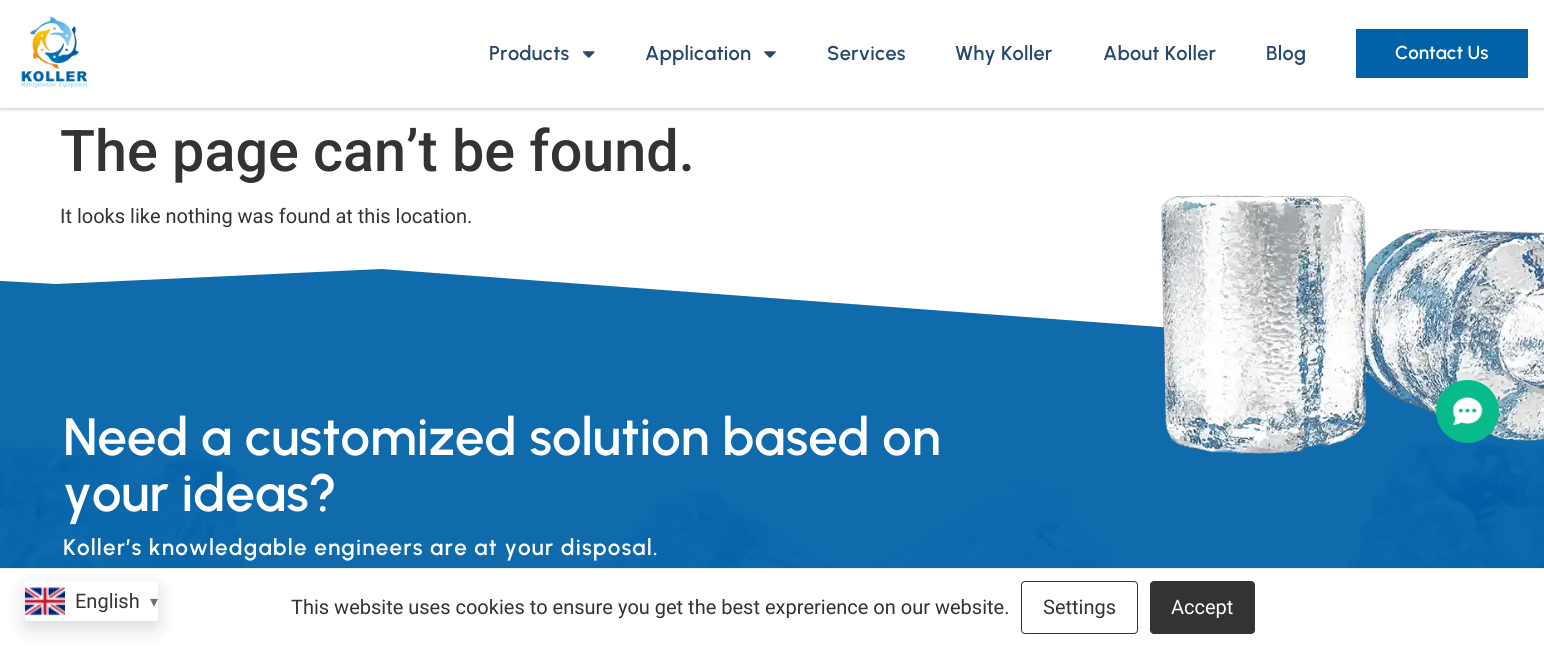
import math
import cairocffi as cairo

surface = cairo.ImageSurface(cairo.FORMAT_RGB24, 1544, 646)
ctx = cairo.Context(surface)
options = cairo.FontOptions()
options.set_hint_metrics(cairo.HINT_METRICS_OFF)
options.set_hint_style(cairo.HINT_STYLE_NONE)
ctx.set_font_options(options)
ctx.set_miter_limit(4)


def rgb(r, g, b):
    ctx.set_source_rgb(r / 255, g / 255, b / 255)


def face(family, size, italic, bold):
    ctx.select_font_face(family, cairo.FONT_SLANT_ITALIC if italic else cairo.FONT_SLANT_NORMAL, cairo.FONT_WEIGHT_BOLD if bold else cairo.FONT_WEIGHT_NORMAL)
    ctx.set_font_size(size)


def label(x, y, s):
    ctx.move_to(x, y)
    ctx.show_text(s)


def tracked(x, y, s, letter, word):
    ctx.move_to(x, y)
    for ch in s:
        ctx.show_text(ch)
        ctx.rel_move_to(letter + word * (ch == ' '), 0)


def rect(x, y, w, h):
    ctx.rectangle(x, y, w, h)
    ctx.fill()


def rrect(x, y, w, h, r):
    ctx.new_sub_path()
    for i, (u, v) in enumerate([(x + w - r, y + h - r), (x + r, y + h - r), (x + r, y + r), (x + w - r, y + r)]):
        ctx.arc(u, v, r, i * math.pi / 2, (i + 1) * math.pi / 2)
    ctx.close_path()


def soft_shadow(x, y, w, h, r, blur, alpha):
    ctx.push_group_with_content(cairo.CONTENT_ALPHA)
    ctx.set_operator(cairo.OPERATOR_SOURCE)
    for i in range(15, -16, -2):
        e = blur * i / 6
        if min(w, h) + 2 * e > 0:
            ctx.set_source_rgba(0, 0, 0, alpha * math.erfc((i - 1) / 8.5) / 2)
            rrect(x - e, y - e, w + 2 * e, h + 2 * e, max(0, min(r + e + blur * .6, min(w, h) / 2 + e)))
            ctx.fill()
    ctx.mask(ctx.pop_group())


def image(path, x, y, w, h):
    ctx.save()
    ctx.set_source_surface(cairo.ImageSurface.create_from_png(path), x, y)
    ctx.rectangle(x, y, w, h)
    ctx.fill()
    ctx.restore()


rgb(255, 255, 255)
ctx.paint()
ctx.save()
ctx.set_fill_rule(cairo.FILL_RULE_EVEN_ODD)
ctx.new_path()
ctx.move_to(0, 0)
ctx.line_to(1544, 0)
ctx.line_to(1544, 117)
ctx.line_to(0, 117)
ctx.close_path()
ctx.move_to(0, 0)
ctx.line_to(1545, 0)
ctx.line_to(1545, 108)
ctx.line_to(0, 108)
ctx.close_path()
ctx.clip()
rgb(28, 34, 45)
soft_shadow(0, 0, 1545, 108, 0, 2.5, 0.35)
ctx.restore()
ctx.set_source_rgba(1, 1, 1, 0.91)
rect(0, 107, 1544, 1)
image('image0.png', 21, 16, 67, 72)
face('Urbanist SemiBold', 20, 0, 0)
rgb(40, 72, 111)
tracked(489, 60, 'Products', 0.25, 0)
image('image1.png', 583, 51, 12, 7)
tracked(645, 60, 'Application', 0.25, 0)
image('image2.png', 764, 51, 12, 7)
tracked(827, 60, 'Services', 0.25, 0)
tracked(955, 60, 'Why Koller', 0.25, 0)
tracked(1103, 60, 'About Koller', 0.25, 0)
tracked(1266, 60, 'Blog', 0.25, 0)
rgb(1, 98, 168)
rect(1356, 29, 172, 49)
face('Urbanist SemiBold', 18.75, 0, 0)
rgb(255, 255, 255)
label(1395, 59, 'Contact Us')
face('Roboto Medium', 57.5, 0, 0)
rgb(51, 51, 51)
label(60, 171, 'The page can’t be found.')
face('Roboto', 20, 0, 0)
label(60, 223, 'It looks like nothing was found at this location.')
image('image3.png', 0, 269, 1544, 299)
rgb(255, 255, 255)
ctx.new_path()
ctx.move_to(56, 284)
ctx.line_to(381, 269)
ctx.line_to(1227, 332)
ctx.line_to(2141, 248)
ctx.line_to(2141, 245)
ctx.line_to(-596, 245)
ctx.line_to(-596, 248)
ctx.fill()
image('image4.png', 1161, 195, 383, 260)
face('Urbanist SemiBold', 52.5, 0, 0)
label(63, 455, 'Need a customized solution based on')
label(63, 511, 'your ideas?')
face('Urbanist SemiBold', 22.5, 0, 0)
tracked(63, 555, 'Koller’s knowledgable engineers are at your disposal.', 1.12, 0)
rgb(7, 187, 138)
ctx.new_path()
ctx.arc(1467.5, 411.5, 31.5, 0, 2 * math.pi)
ctx.fill()
image('image5.png', 1453, 397, 30, 28)
rgb(238, 238, 238)
rect(0, 568, 1544, 1)
rgb(0, 0, 0)
soft_shadow(25, 588, 133, 40, 2.5, 9.5, 0.15)
rgb(255, 255, 255)
rrect(25, 581, 133, 40, 2.5)
ctx.fill()
image('image6.png', 25, 587, 40, 29)
face('Roboto', 20, 0, 0)
rgb(51, 51, 51)
label(75, 608, 'English')
face('DejaVu Sans', 16, 0, 0)
rgb(112, 112, 112)
label(150, 607, '▾')
face('Roboto', 20, 0, 0)
rgb(51, 51, 51)
label(291, 614, 'This website uses cookies to ensure you get the best exprerience on our website.')
rrect(1021.5, 581.5, 116, 52, 3.5)
ctx.set_line_width(1)
ctx.stroke()
label(1043, 614, 'Settings')
rrect(1150.5, 581.5, 104, 52, 3.5)
ctx.fill_preserve()
ctx.stroke()
rgb(255, 255, 255)
label(1171, 614, 'Accept')
surface.write_to_png('render.png')
